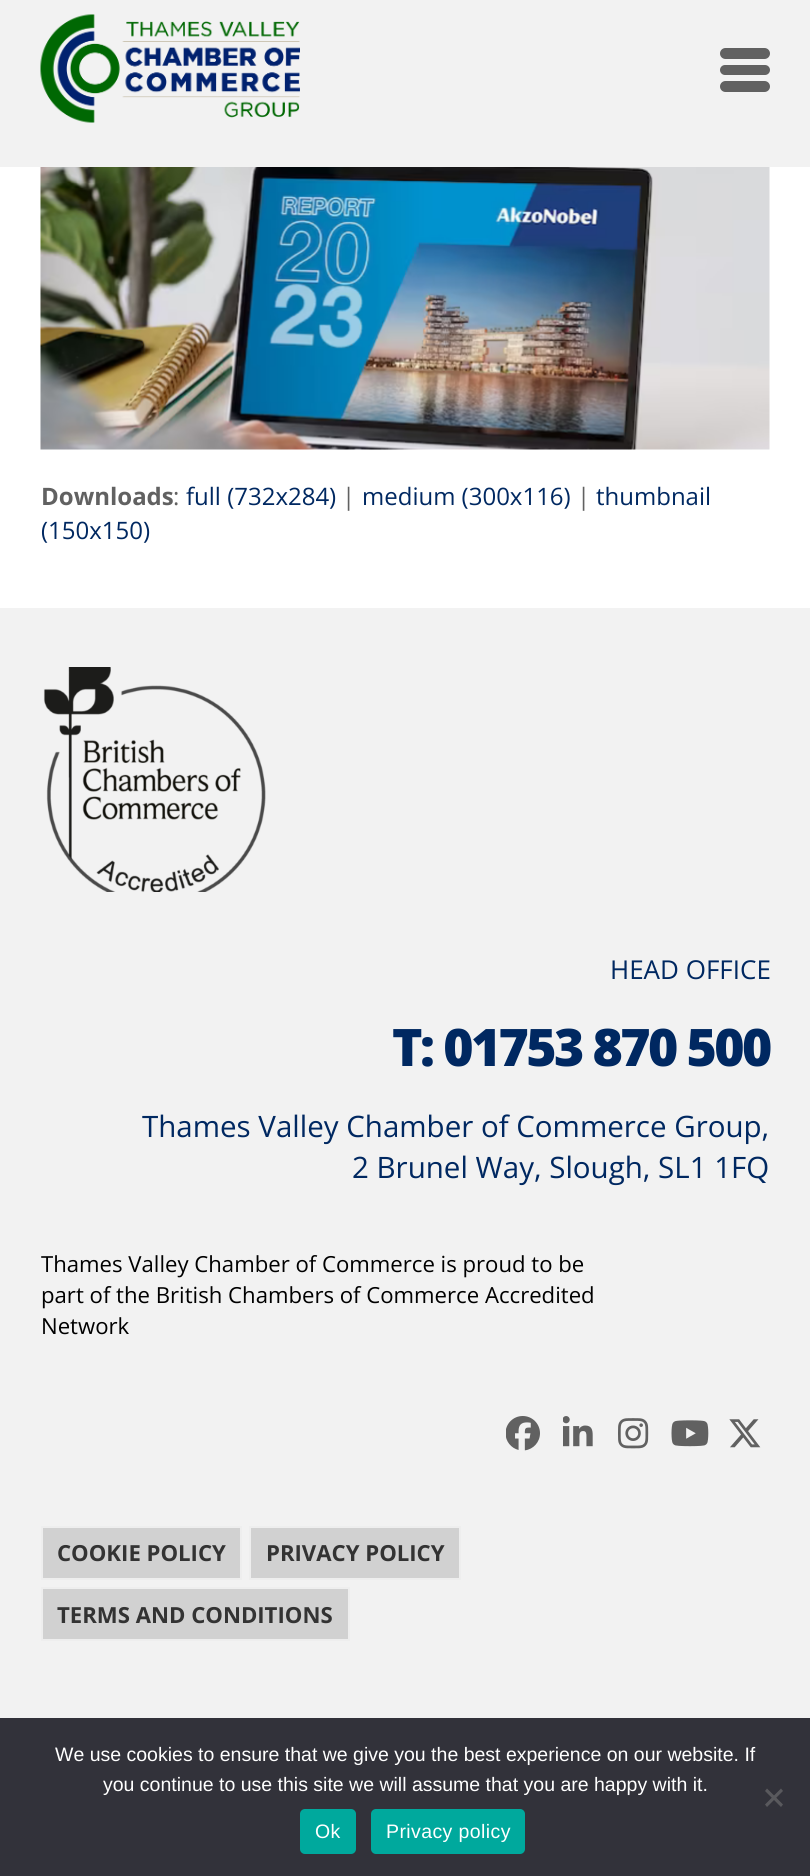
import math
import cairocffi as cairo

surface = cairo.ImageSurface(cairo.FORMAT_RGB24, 810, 1876)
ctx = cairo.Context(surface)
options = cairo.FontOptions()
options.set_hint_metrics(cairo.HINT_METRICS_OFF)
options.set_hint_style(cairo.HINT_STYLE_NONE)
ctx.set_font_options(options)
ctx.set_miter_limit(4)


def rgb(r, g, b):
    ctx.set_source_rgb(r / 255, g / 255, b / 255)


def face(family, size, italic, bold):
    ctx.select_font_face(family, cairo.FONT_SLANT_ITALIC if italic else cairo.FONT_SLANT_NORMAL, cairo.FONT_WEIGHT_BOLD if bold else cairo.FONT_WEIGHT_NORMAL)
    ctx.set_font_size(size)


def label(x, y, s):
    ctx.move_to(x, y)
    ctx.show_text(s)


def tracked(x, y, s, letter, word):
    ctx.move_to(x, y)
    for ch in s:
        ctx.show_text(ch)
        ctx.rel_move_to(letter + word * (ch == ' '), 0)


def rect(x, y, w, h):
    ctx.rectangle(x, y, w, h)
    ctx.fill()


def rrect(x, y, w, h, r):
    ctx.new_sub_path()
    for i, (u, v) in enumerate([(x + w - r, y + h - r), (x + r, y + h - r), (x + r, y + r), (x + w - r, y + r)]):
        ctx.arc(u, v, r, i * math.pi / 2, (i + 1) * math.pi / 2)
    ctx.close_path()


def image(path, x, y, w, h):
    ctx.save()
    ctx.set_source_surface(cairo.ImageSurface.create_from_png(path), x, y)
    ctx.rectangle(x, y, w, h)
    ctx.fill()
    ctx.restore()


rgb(255, 255, 255)
ctx.paint()
rgb(242, 242, 242)
rect(0, 0, 810, 167)
image('image0.png', 40, 14, 260, 109)
rgb(97, 97, 97)
rrect(720, 65, 50, 10, 5)
ctx.fill()
rrect(720, 48, 50, 11, 5.5)
ctx.fill()
rrect(720, 81, 50, 11, 5.5)
ctx.fill()
image('image1.png', 40, 167, 730, 283)
face('Open Sans', 24, 0, 1)
label(41, 505, 'Downloads')
face('Open Sans', 24, 0, 0)
label(173, 505, ':')
rgb(0, 40, 97)
label(186, 505, 'full (732x284)')
rgb(97, 97, 97)
label(342, 505, '|')
rgb(0, 40, 97)
label(362, 505, 'medium (300x116)')
rgb(97, 97, 97)
label(577, 505, '|')
rgb(0, 40, 97)
label(596, 505, 'thumbnail')
label(41, 539, '(150x150)')
rgb(242, 242, 242)
rect(0, 608, 810, 1110)
image('image2.png', 43, 667, 223, 225)
face('Open Sans', 26, 0, 0)
rgb(0, 40, 97)
label(610, 979, 'HEAD OFFICE')
face('Open Sans ExtraBold', 51.75, 0, 0)
tracked(392, 1066, 'T: 01753 870 500', -2.6, 0)
face('Open Sans', 29.5, 0, 0)
label(142, 1137, 'Thames Valley Chamber of Commerce Group,')
label(352, 1178, '2 Brunel Way, Slough, SL1 1FQ')
face('Open Sans', 22.15, 0, 0)
rgb(0, 0, 0)
label(41, 1272, 'Thames Valley Chamber of Commerce is proud to be')
label(41, 1303, 'part of the British Chambers of Commerce Accredited')
label(41, 1334, 'Network')
image('image3.png', 506, 1416, 34, 35)
image('image4.png', 563, 1416, 30, 31)
image('image5.png', 618, 1418, 31, 31)
image('image6.png', 671, 1420, 38, 27)
image('image7.png', 729, 1419, 32, 29)
rgb(209, 209, 209)
ctx.rectangle(42, 1527, 199, 52)
ctx.fill_preserve()
rgb(238, 238, 238)
ctx.stroke()
face('Open Sans', 22.15, 0, 1)
rgb(51, 51, 51)
label(57, 1561, 'COOKIE POLICY')
rgb(209, 209, 209)
ctx.rectangle(250, 1527, 210, 52)
ctx.fill_preserve()
rgb(238, 238, 238)
ctx.stroke()
rgb(51, 51, 51)
label(266, 1561, 'PRIVACY POLICY')
rgb(209, 209, 209)
ctx.rectangle(42, 1588, 307, 52)
ctx.fill_preserve()
rgb(238, 238, 238)
ctx.stroke()
rgb(51, 51, 51)
label(57, 1623, 'TERMS AND CONDITIONS')
rgb(50, 50, 58)
rect(0, 1718, 810, 158)
face('Liberation Sans', 19.5, 0, 0)
rgb(255, 255, 255)
label(55, 1761, 'We use cookies to ensure that we give you the best experience on our website. If')
label(103, 1791, 'you continue to use this site we will assume that you are happy with it.')
rgb(89, 89, 93)
ctx.new_path()
ctx.move_to(781, 1788.5)
ctx.line_to(783, 1791)
ctx.line_to(767, 1807)
ctx.line_to(765, 1804.5)
ctx.close_path()
ctx.fill()
ctx.new_path()
ctx.move_to(765, 1791)
ctx.line_to(767, 1788.5)
ctx.line_to(783, 1804.5)
ctx.line_to(781, 1807)
ctx.close_path()
ctx.fill()
rgb(0, 169, 157)
rrect(300, 1809, 56, 45, 5)
ctx.fill()
rgb(255, 255, 255)
tracked(315, 1838, 'Ok', 0.4, 0)
rgb(0, 169, 157)
rrect(371, 1809, 154, 45, 5)
ctx.fill()
rgb(255, 255, 255)
tracked(386, 1838, 'Privacy policy', 0.4, 0)
surface.write_to_png('render.png')
